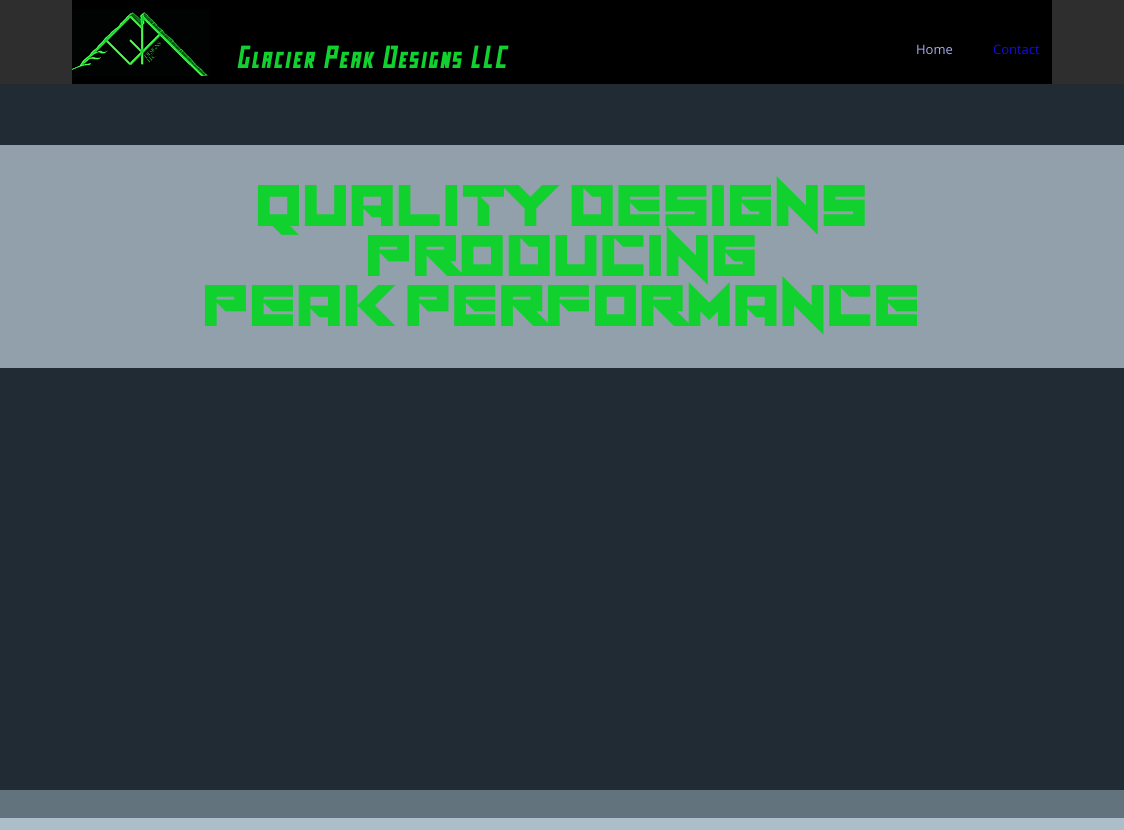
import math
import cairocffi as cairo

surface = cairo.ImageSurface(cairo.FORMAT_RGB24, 1124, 830)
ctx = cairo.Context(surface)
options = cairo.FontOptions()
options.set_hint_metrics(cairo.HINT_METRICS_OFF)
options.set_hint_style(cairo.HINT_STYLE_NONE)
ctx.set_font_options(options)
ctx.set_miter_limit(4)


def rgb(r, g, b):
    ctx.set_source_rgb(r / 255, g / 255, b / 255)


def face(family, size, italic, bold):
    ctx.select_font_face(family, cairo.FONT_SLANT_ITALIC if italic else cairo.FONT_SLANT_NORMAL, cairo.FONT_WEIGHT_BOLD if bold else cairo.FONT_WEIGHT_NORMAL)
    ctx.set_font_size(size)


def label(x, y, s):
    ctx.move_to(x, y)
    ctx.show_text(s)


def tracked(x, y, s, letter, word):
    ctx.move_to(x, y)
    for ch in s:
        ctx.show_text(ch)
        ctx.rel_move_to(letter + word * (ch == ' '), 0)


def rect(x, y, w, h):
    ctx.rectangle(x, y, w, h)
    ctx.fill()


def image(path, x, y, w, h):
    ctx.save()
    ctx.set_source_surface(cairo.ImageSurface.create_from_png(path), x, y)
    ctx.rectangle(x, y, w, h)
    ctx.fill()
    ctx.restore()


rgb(171, 190, 202)
ctx.paint()
rgb(47, 46, 46)
rect(0, 0, 1124, 84)
rgb(0, 0, 0)
rect(72, 0, 980, 84)
image('image0.png', 72, 10, 138, 66)
face('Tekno', 32, 1, 0)
rgb(16, 209, 46)
tracked(236, 68, 'Glacier Peak Designs LLC', 1.9, 0)
face('Open Sans', 13, 0, 0)
rgb(169, 168, 245)
label(916, 54, 'Home')
rgb(17, 13, 224)
label(993, 54, 'Contact')
rgb(32, 43, 51)
rect(0, 84, 1124, 706)
rgb(98, 115, 126)
rect(0, 790, 1124, 28)
rgb(145, 160, 170)
rect(0, 145, 1124, 223)
face('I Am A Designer', 60, 0, 0)
rgb(16, 209, 46)
label(255, 226, 'Quality Designs')
label(365, 276, 'Producing')
label(202, 326, 'Peak Performance')
surface.write_to_png('render.png')
